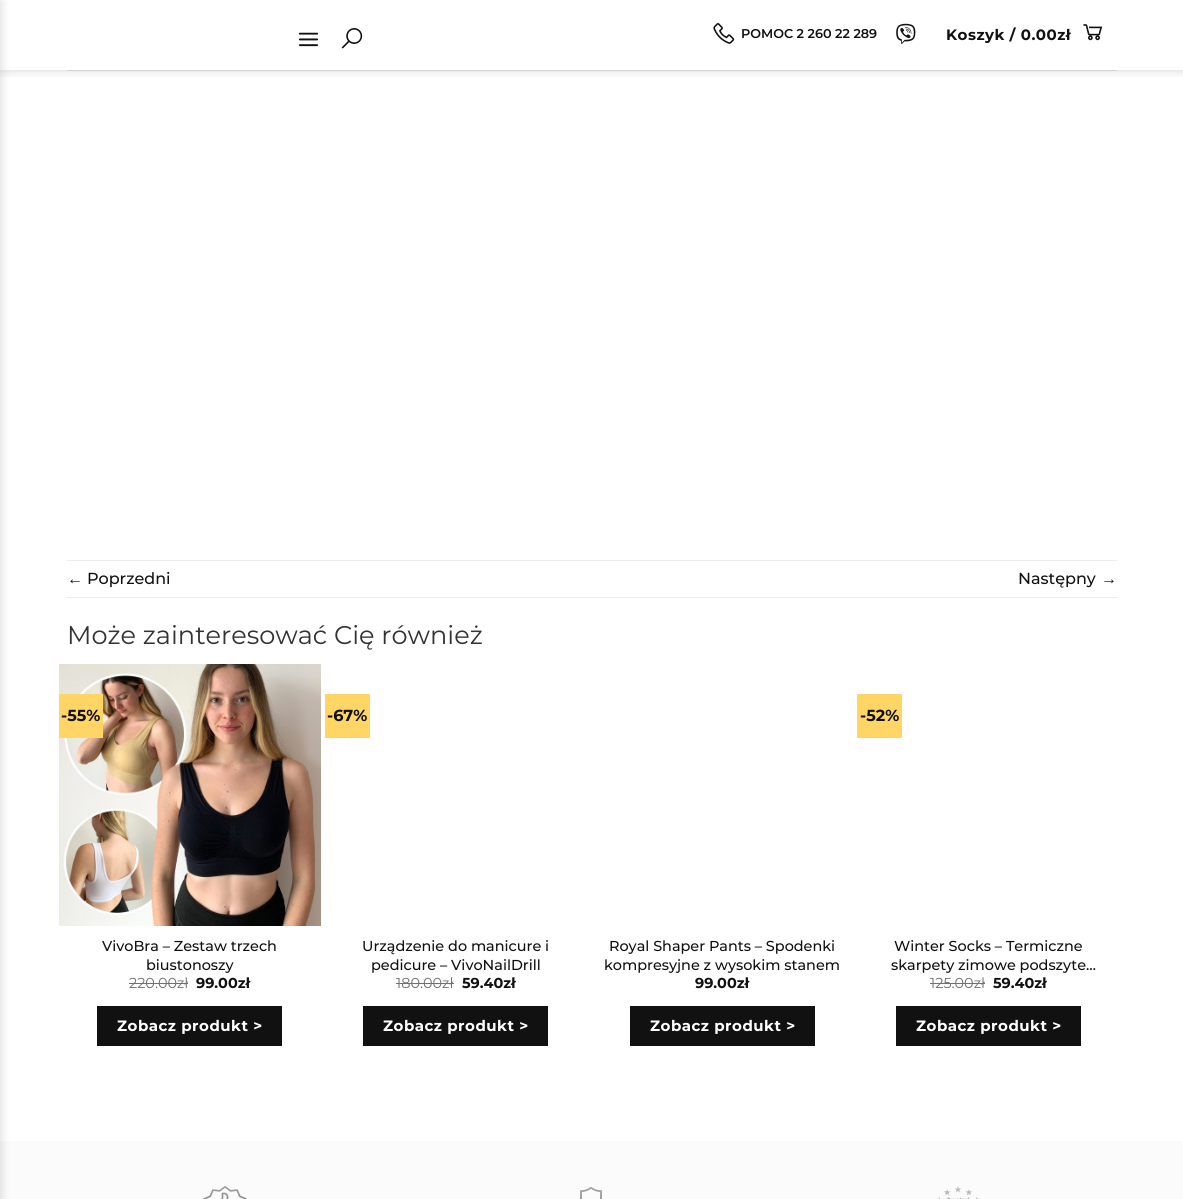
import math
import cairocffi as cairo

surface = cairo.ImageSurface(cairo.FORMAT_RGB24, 1183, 1199)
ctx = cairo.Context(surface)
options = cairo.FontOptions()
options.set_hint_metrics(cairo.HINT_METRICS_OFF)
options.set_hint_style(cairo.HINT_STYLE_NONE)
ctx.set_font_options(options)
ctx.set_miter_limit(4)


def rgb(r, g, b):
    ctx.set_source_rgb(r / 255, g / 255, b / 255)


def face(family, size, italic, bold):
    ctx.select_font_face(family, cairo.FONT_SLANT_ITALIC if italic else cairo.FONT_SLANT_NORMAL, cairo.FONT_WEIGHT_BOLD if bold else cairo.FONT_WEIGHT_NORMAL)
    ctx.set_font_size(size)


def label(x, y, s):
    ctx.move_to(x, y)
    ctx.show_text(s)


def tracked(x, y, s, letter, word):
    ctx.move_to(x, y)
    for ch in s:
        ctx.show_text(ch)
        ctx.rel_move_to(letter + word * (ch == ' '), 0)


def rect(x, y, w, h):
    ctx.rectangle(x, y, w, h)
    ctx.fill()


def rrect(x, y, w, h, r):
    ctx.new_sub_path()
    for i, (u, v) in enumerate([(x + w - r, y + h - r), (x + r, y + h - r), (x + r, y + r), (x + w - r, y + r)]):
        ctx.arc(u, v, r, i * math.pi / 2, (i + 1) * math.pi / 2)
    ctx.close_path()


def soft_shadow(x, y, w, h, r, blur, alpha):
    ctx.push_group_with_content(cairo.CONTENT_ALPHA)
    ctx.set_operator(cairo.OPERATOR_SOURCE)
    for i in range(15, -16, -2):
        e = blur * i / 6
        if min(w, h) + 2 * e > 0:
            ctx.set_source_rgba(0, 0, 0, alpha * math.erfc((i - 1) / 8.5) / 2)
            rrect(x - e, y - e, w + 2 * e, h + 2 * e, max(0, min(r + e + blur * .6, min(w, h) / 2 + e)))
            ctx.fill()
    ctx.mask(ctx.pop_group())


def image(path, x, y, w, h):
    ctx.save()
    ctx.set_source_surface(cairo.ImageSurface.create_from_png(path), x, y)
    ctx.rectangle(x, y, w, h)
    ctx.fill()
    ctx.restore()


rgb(255, 255, 255)
ctx.paint()
ctx.save()
ctx.rectangle(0, 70, 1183, 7)
ctx.clip()
rgb(0, 0, 0)
soft_shadow(1, 1, 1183, 70, 0, 5, 0.15)
ctx.restore()
rgb(251, 251, 251)
rect(0, 1141, 1183, 58)
rgb(0, 0, 0)
soft_shadow(-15, 1, 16, 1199, 0, 5, 0.15)
image('image0.png', 298, 32, 21, 15)
image('image1.png', 341, 28, 22, 21)
image('image2.png', 713, 23, 22, 21)
face('Montserrat SemiBold', 12.75, 0, 0)
rgb(17, 17, 17)
label(741, 38, 'POMOC 2 260 22 289')
image('image3.png', 896, 23, 20, 21)
face('Montserrat', 15, 0, 1)
tracked(946, 40, 'Koszyk / 0.00zł', 0.5, 0)
image('image4.png', 1083, 24, 20, 17)
rgb(213, 213, 213)
rect(67, 70, 1050, 1)
rgb(236, 236, 236)
rect(67, 560, 1050, 1)
rect(67, 597, 1050, 1)
face('Liberation Sans', 16, 0, 0)
rgb(17, 17, 17)
label(67, 584, '←')
face('Montserrat Medium', 16, 0, 0)
label(87, 584, 'Poprzedni')
label(1018, 584, 'Następny')
face('Liberation Sans', 16, 0, 0)
label(1101, 584, '→')
face('Montserrat', 25.6, 0, 0)
rgb(51, 51, 51)
label(67, 644, 'Może zainteresować Cię również')
image('image5.png', 59, 664, 262, 262)
rgb(255, 213, 102)
rect(59, 694, 44, 44)
face('Montserrat', 16, 0, 1)
rgb(17, 17, 17)
label(61, 721, '-55%')
face('Montserrat Medium', 14.4, 0, 0)
label(102, 951, 'VivoBra – Zestaw trzech')
label(146, 970, 'biustonoszy')
face('Montserrat', 14.4, 0, 0)
rgb(112, 112, 112)
label(129, 988, '220.00zł')
rect(129, 983, 59, 1)
face('Montserrat', 14.4, 0, 1)
rgb(17, 17, 17)
label(196, 988, '99.00zł')
rect(97, 1006, 185, 40)
face('Montserrat', 15, 0, 1)
rgb(255, 255, 255)
tracked(117, 1031, 'Zobacz produkt >', 0.5, 0)
rgb(255, 213, 102)
rect(325, 694, 45, 44)
face('Montserrat', 16, 0, 1)
rgb(17, 17, 17)
label(327, 721, '-67%')
face('Montserrat Medium', 14.4, 0, 0)
label(362, 951, 'Urządzenie do manicure i')
label(371, 970, 'pedicure – VivoNailDrill')
face('Montserrat', 14.4, 0, 0)
rgb(112, 112, 112)
label(396, 988, '180.00zł')
rect(396, 983, 58, 1)
face('Montserrat', 14.4, 0, 1)
rgb(17, 17, 17)
label(462, 988, '59.40zł')
rect(363, 1006, 185, 40)
face('Montserrat', 15, 0, 1)
rgb(255, 255, 255)
tracked(383, 1031, 'Zobacz produkt >', 0.5, 0)
face('Montserrat Medium', 14.4, 0, 0)
rgb(17, 17, 17)
label(609, 951, 'Royal Shaper Pants – Spodenki')
label(604, 970, 'kompresyjne z wysokim stanem')
face('Montserrat', 14.4, 0, 1)
label(695, 988, '99.00zł')
rect(630, 1006, 185, 40)
face('Montserrat', 15, 0, 1)
rgb(255, 255, 255)
tracked(650, 1031, 'Zobacz produkt >', 0.5, 0)
rgb(255, 213, 102)
rect(857, 694, 45, 44)
face('Montserrat', 16, 0, 1)
rgb(17, 17, 17)
label(860, 721, '-52%')
face('Montserrat Medium', 14.4, 0, 0)
label(894, 951, 'Winter Socks – Termiczne')
label(891, 970, 'skarpety zimowe podszyte…')
face('Montserrat', 14.4, 0, 0)
rgb(112, 112, 112)
label(930, 988, '125.00zł')
rect(930, 983, 55, 1)
face('Montserrat', 14.4, 0, 1)
rgb(17, 17, 17)
label(993, 988, '59.40zł')
rect(896, 1006, 185, 40)
face('Montserrat', 15, 0, 1)
rgb(255, 255, 255)
tracked(916, 1031, 'Zobacz produkt >', 0.5, 0)
image('image6.png', 203, 1186, 44, 13)
image('image7.png', 580, 1186, 22, 13)
image('image8.png', 938, 1186, 40, 13)
surface.write_to_png('render.png')
